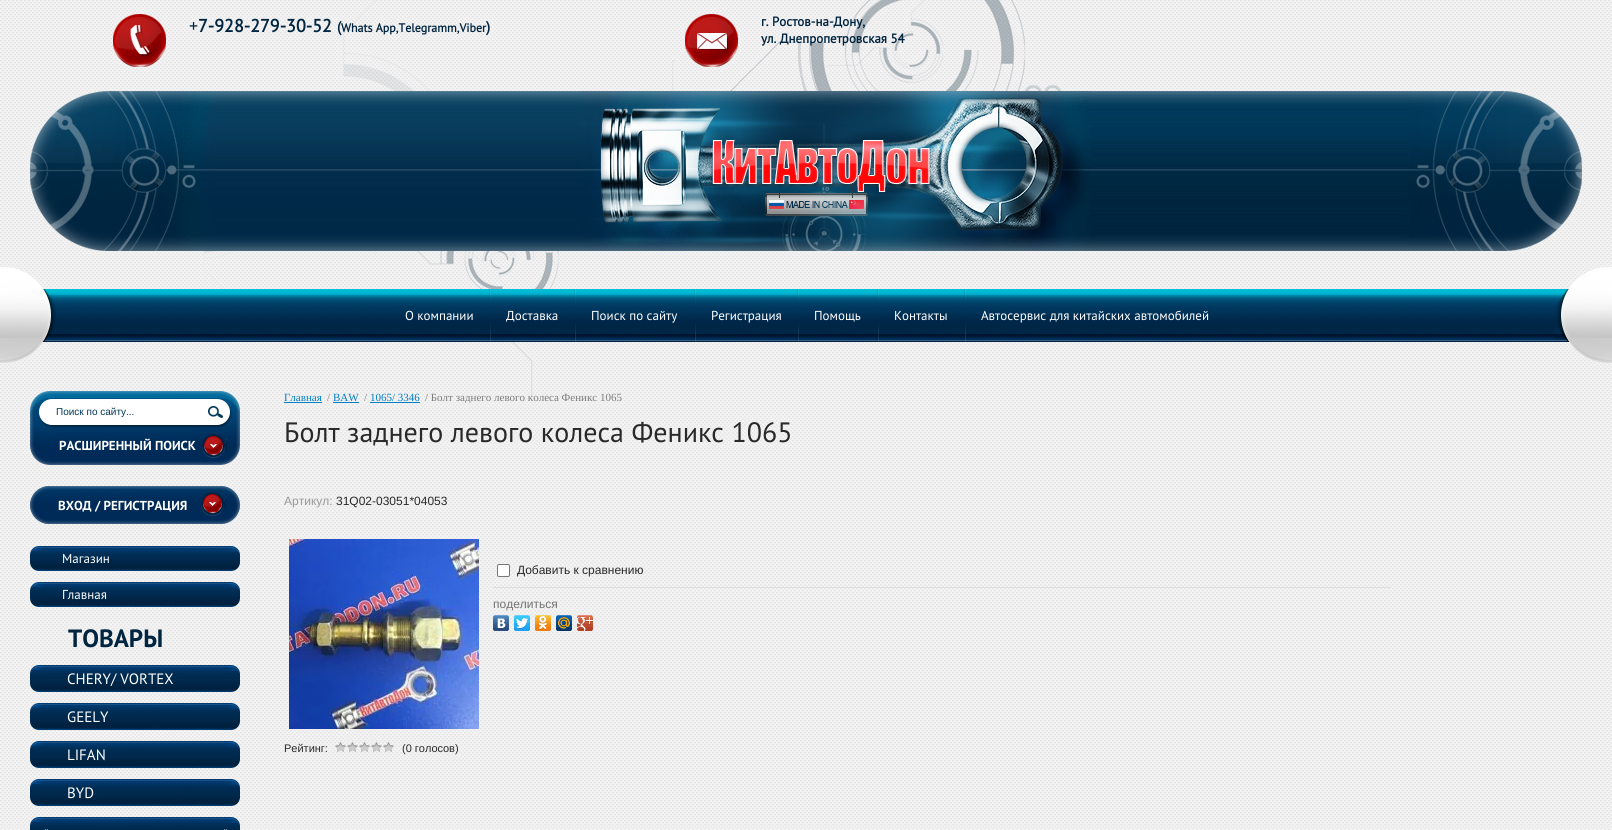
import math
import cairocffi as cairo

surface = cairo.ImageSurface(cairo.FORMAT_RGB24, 1612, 830)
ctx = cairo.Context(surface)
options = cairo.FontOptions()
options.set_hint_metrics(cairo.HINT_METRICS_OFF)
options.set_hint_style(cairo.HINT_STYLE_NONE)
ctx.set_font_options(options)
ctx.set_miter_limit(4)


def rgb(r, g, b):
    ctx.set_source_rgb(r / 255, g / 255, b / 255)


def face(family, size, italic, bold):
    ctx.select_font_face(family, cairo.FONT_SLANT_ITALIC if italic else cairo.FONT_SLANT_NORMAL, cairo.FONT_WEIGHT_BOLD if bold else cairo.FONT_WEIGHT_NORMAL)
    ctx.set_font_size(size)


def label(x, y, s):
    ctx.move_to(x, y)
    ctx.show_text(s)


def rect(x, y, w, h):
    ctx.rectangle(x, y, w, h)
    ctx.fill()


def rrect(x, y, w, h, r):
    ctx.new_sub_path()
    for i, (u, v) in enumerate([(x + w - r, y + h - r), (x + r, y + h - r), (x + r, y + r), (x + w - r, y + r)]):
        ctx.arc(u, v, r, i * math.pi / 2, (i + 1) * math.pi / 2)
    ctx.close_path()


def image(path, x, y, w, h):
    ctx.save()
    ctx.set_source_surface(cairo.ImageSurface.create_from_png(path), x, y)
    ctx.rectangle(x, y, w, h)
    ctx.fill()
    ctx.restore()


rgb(255, 255, 255)
ctx.paint()
image('image0.png', 0, 0, 1612, 830)
image('image1.png', 122, 0, 939, 397)
image('image2.png', 113, 14, 53, 54)
face('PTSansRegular', 18, 0, 0)
rgb(0, 37, 64)
label(189, 32, '+')
face('PTSansRegular', 18, 0, 1)
label(198, 32, '7-928-279-30-52')
face('PTSansRegular', 15, 0, 1)
label(337, 32, '(')
face('PTSansRegular', 12, 0, 1)
label(341, 32, 'Whats App,Telegramm,Viber')
face('PTSansRegular', 15, 0, 1)
label(486, 32, ')')
image('image3.png', 685, 14, 53, 54)
face('PTSansRegular', 13, 0, 1)
label(761, 26, 'г. Ростов-на-Дону,')
label(761, 43, 'ул. Днепропетровская 54')
image('image4.png', 30, 91, 196, 160)
image('image5.png', 226, 91, 776, 160)
image('image6.png', 748, 91, 466, 160)
image('image7.png', 1214, 91, 368, 160)
image('image8.png', 581, 91, 511, 160)
image('image9.png', 56, 289, 1499, 53)
image('image10.png', 0, 267, 56, 96)
face('PTSansRegular', 13, 0, 0)
rgb(255, 255, 255)
label(405, 320, 'О компании')
image('image11.png', 489, 289, 2, 53)
label(506, 320, 'Доставка')
image('image11.png', 574, 289, 2, 53)
label(591, 320, 'Поиск по сайту')
image('image11.png', 694, 289, 2, 53)
label(711, 320, 'Регистрация')
image('image12.png', 797, 289, 2, 53)
label(814, 320, 'Помощь')
image('image12.png', 877, 289, 2, 53)
label(894, 320, 'Контакты')
image('image11.png', 964, 289, 2, 53)
label(981, 320, 'Автосервис для китайских автомобилей')
image('image13.png', 1555, 267, 57, 96)
image('image14.png', 30, 391, 210, 74)
image('image15.png', 39, 399, 193, 29)
face('Liberation Sans', 10, 0, 0)
rgb(0, 55, 87)
label(56, 415, 'Поиск по сайту...')
face('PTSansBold', 13, 0, 1)
rgb(255, 255, 255)
label(59, 450, 'РАСШИРЕННЫЙ ПОИСК')
image('image16.png', 202, 434, 25, 24)
image('image17.png', 30, 486, 210, 38)
label(58, 510, 'ВХОД / РЕГИСТРАЦИЯ')
image('image18.png', 201, 492, 25, 24)
image('image19.png', 30, 546, 210, 12)
image('image20.png', 30, 560, 210, 11)
rgb(0, 41, 78)
rect(30, 558, 210, 2)
face('PTSansRegular', 13, 0, 0)
rgb(255, 255, 255)
label(62, 563, 'Магазин')
image('image19.png', 30, 582, 210, 12)
image('image20.png', 30, 596, 210, 11)
rgb(0, 41, 78)
rect(30, 594, 210, 2)
rgb(255, 255, 255)
label(62, 599, 'Главная')
face('PTSansBold', 25, 0, 1)
rgb(0, 37, 64)
label(68, 647, 'ТОВАРЫ')
image('image21.png', 30, 665, 210, 12)
image('image22.png', 30, 681, 210, 11)
rgb(0, 41, 78)
rect(30, 677, 210, 4)
face('PTSansRegular', 15, 0, 0)
rgb(255, 255, 255)
label(67, 684, 'CHERY/ VORTEX')
image('image23.png', 30, 703, 210, 12)
image('image24.png', 30, 719, 210, 11)
rgb(0, 41, 78)
rect(30, 715, 210, 4)
rgb(255, 255, 255)
label(67, 722, 'GEELY')
image('image21.png', 30, 741, 210, 12)
image('image22.png', 30, 757, 210, 11)
rgb(0, 41, 78)
rect(30, 753, 210, 4)
rgb(255, 255, 255)
label(67, 760, 'LIFAN')
image('image23.png', 30, 779, 210, 12)
image('image24.png', 30, 795, 210, 11)
rgb(0, 41, 78)
rect(30, 791, 210, 4)
rgb(255, 255, 255)
label(67, 798, 'BYD')
image('image21.png', 30, 817, 210, 12)
rgb(0, 41, 78)
rect(30, 829, 210, 1)
image('image25.png', 45, 829, 182, 1)
face('Liberation Serif', 11, 0, 0)
rgb(0, 127, 194)
label(284, 401, 'Главная')
rect(284, 402, 38, 1)
rgb(125, 125, 125)
label(327, 401, '/')
rgb(0, 127, 194)
label(333, 401, 'BAW')
rect(333, 402, 26, 1)
rgb(125, 125, 125)
label(364, 401, '/')
rgb(0, 127, 194)
label(370, 401, '1065/ 3346')
rect(370, 402, 50, 1)
rgb(125, 125, 125)
label(425, 401, '/ Болт заднего левого колеса Феникс 1065')
face('PTSansRegular', 28, 0, 0)
rgb(41, 41, 41)
label(284, 442, 'Болт заднего левого колеса Феникс 1065')
face('Liberation Sans', 12, 0, 0)
rgb(153, 153, 153)
label(284, 505, 'Артикул:')
rgb(41, 41, 41)
label(336, 505, '31Q02-03051*04053')
rgb(222, 222, 222)
rect(493, 587, 898, 1)
rgb(255, 255, 255)
rrect(497.5, 564.5, 12, 12, 1.5)
ctx.fill_preserve()
rgb(118, 118, 118)
ctx.set_line_width(1)
ctx.stroke()
rgb(41, 41, 41)
label(517, 574, 'Добавить к сравнению')
rgb(115, 115, 115)
label(493, 608, 'поделиться')
image('image26.png', 493, 615, 16, 16)
image('image27.png', 514, 615, 16, 16)
image('image28.png', 535, 615, 16, 16)
image('image29.png', 556, 615, 16, 16)
image('image30.png', 577, 615, 16, 16)
image('image31.png', 289, 539, 190, 190)
face('Liberation Sans', 11, 0, 0)
rgb(41, 41, 41)
label(284, 752, 'Рейтинг:')
image('image32.png', 335, 742, 59, 10)
label(402, 752, '(0 голосов)')
surface.write_to_png('render.png')
